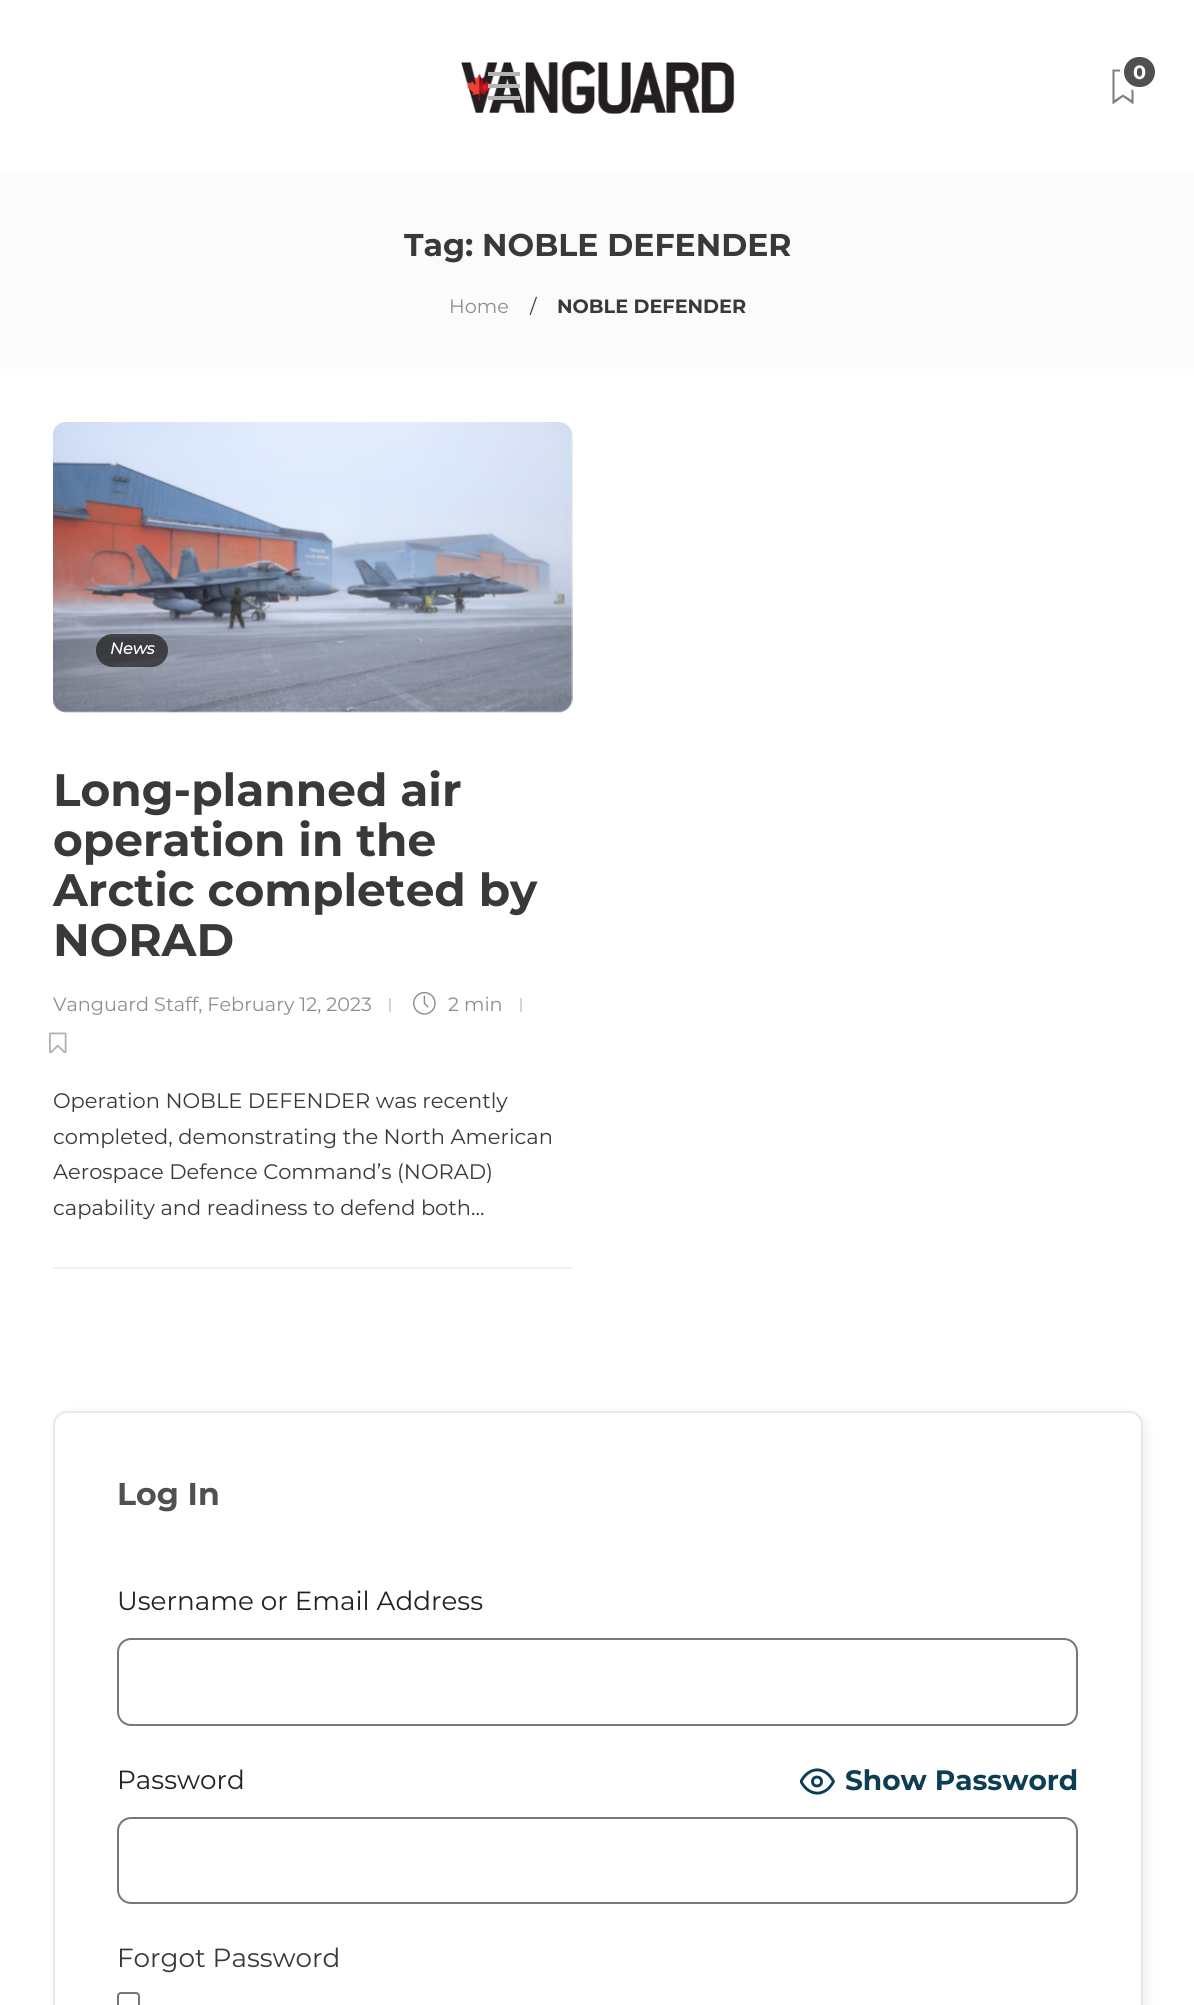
import math
import cairocffi as cairo

surface = cairo.ImageSurface(cairo.FORMAT_RGB24, 1194, 2005)
ctx = cairo.Context(surface)
options = cairo.FontOptions()
options.set_hint_metrics(cairo.HINT_METRICS_OFF)
options.set_hint_style(cairo.HINT_STYLE_NONE)
ctx.set_font_options(options)
ctx.set_miter_limit(4)


def rgb(r, g, b):
    ctx.set_source_rgb(r / 255, g / 255, b / 255)


def face(family, size, italic, bold):
    ctx.select_font_face(family, cairo.FONT_SLANT_ITALIC if italic else cairo.FONT_SLANT_NORMAL, cairo.FONT_WEIGHT_BOLD if bold else cairo.FONT_WEIGHT_NORMAL)
    ctx.set_font_size(size)


def label(x, y, s):
    ctx.move_to(x, y)
    ctx.show_text(s)


def rect(x, y, w, h):
    ctx.rectangle(x, y, w, h)
    ctx.fill()


def rrect(x, y, w, h, r):
    ctx.new_sub_path()
    for i, (u, v) in enumerate([(x + w - r, y + h - r), (x + r, y + h - r), (x + r, y + r), (x + w - r, y + r)]):
        ctx.arc(u, v, r, i * math.pi / 2, (i + 1) * math.pi / 2)
    ctx.close_path()


def soft_shadow(x, y, w, h, r, blur, alpha):
    ctx.push_group_with_content(cairo.CONTENT_ALPHA)
    ctx.set_operator(cairo.OPERATOR_SOURCE)
    for i in range(15, -16, -2):
        e = blur * i / 6
        if min(w, h) + 2 * e > 0:
            ctx.set_source_rgba(0, 0, 0, alpha * math.erfc((i - 1) / 8.5) / 2)
            rrect(x - e, y - e, w + 2 * e, h + 2 * e, max(0, min(r + e + blur * .6, min(w, h) / 2 + e)))
            ctx.fill()
    ctx.mask(ctx.pop_group())


def image(path, x, y, w, h):
    ctx.save()
    ctx.set_source_surface(cairo.ImageSurface.create_from_png(path), x, y)
    ctx.rectangle(x, y, w, h)
    ctx.fill()
    ctx.restore()


rgb(255, 255, 255)
ctx.paint()
image('image0.png', 461, 61, 274, 53)
rgb(126, 126, 126)
ctx.new_path()
ctx.move_to(1112.5, 69.5)
ctx.line_to(1112.5, 104.5)
ctx.line_to(1123, 97)
ctx.line_to(1133.5, 104.5)
ctx.line_to(1133.5, 69.5)
ctx.close_path()
ctx.move_to(1131.5, 100)
ctx.line_to(1123, 94.5)
ctx.line_to(1114.5, 100)
ctx.line_to(1114.5, 71.5)
ctx.line_to(1131.5, 71.5)
ctx.close_path()
ctx.fill()
rgb(80, 80, 80)
rrect(1122, 55, 35, 34, 17)
ctx.fill_preserve()
rgb(255, 255, 255)
ctx.set_line_width(4)
ctx.stroke()
face('Montserrat', 19.25, 0, 1)
label(1133, 79, '0')
rgb(181, 181, 181)
rect(488, 72, 32, 4)
rect(488, 84, 32, 4)
rect(488, 96, 32, 4)
rgb(251, 251, 251)
rect(0, 173, 1194, 196)
face('Montserrat', 31.5, 0, 1)
rgb(57, 57, 57)
label(404, 256, 'Tag: NOBLE DEFENDER')
face('Montserrat Thin', 19.25, 0, 0)
rgb(141, 141, 141)
label(449, 313, 'Home')
rgb(57, 57, 57)
label(530, 313, '/')
face('Montserrat', 19.25, 0, 1)
label(557, 313, 'NOBLE DEFENDER')
rgb(240, 240, 240)
rect(53, 1267, 519, 2)
image('image1.png', 53, 422, 520, 291)
ctx.set_source_rgba(0.11, 0.11, 0.11, 0.7)
rrect(96, 634, 72, 33, 16.5)
ctx.fill()
face('Montserrat', 16, 1, 1)
rgb(255, 255, 255)
label(110, 654, 'News')
face('Montserrat', 45.5, 0, 1)
rgb(57, 57, 57)
label(53, 806, 'Long-planned air')
label(53, 856, 'operation in the')
label(53, 906, 'Arctic completed by')
label(53, 956, 'NORAD')
face('Montserrat Thin', 19.25, 0, 0)
rgb(141, 141, 141)
label(53, 1011, 'Vanguard Staff, February 12, 2023')
rgb(214, 214, 214)
rect(389, 998, 2, 14)
image('image2.png', 413, 991, 23, 24)
rgb(141, 141, 141)
label(448, 1011, '2 min')
rgb(214, 214, 214)
rect(520, 998, 2, 14)
image('image3.png', 49, 1032, 18, 22)
face('Montserrat Thin', 21, 0, 0)
rgb(57, 57, 57)
label(53, 1108, 'Operation NOBLE DEFENDER was recently')
label(53, 1144, 'completed, demonstrating the North American')
label(53, 1179, 'Aerospace Defence Command’s (NORAD)')
label(53, 1215, 'capability and readiness to defend both...')
rgb(0, 0, 0)
soft_shadow(56, 1414, 1090, 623, 14, 6, 0.07)
rgb(255, 255, 255)
rrect(54, 1412, 1088, 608, 13)
ctx.fill_preserve()
rgb(232, 232, 232)
ctx.set_line_width(2)
ctx.stroke()
face('Montserrat', 31.5, 0, 1)
rgb(80, 80, 80)
label(117, 1505, 'Log In')
face('Montserrat Thin', 26.25, 0, 0)
rgb(34, 34, 34)
label(117, 1610, 'Username or Email Address')
rrect(118, 1639, 959, 86, 13)
rgb(119, 119, 119)
ctx.stroke()
rgb(34, 34, 34)
label(117, 1789, 'Password')
ctx.save()
ctx.rectangle(800, 1764, 35, 35)
ctx.clip()
ctx.new_path()
ctx.move_to(801, 1781.5)
ctx.curve_to(809, 1766, 825.5, 1766, 833.5, 1781.5)
ctx.curve_to(825.5, 1797, 809, 1797, 801, 1781.5)
ctx.close_path()
rgb(12, 61, 84)
ctx.set_line_width(2.9)
ctx.set_line_cap(cairo.LINE_CAP_ROUND)
ctx.set_line_join(cairo.LINE_JOIN_ROUND)
ctx.stroke()
ctx.restore()
ctx.arc(817, 1781.5, 4.5, 0, 2 * math.pi)
rgb(12, 61, 84)
ctx.set_line_width(2.9)
ctx.stroke()
face('Montserrat', 28, 0, 1)
label(845, 1790, 'Show Password')
rrect(118, 1818, 959, 85, 13)
rgb(119, 119, 119)
ctx.set_line_width(2)
ctx.stroke()
face('Montserrat Thin', 26.25, 0, 0)
rgb(57, 57, 57)
label(117, 1967, 'Forgot Password')
rrect(118, 1993, 21, 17, 3)
rgb(118, 118, 118)
ctx.stroke()
surface.write_to_png('render.png')
